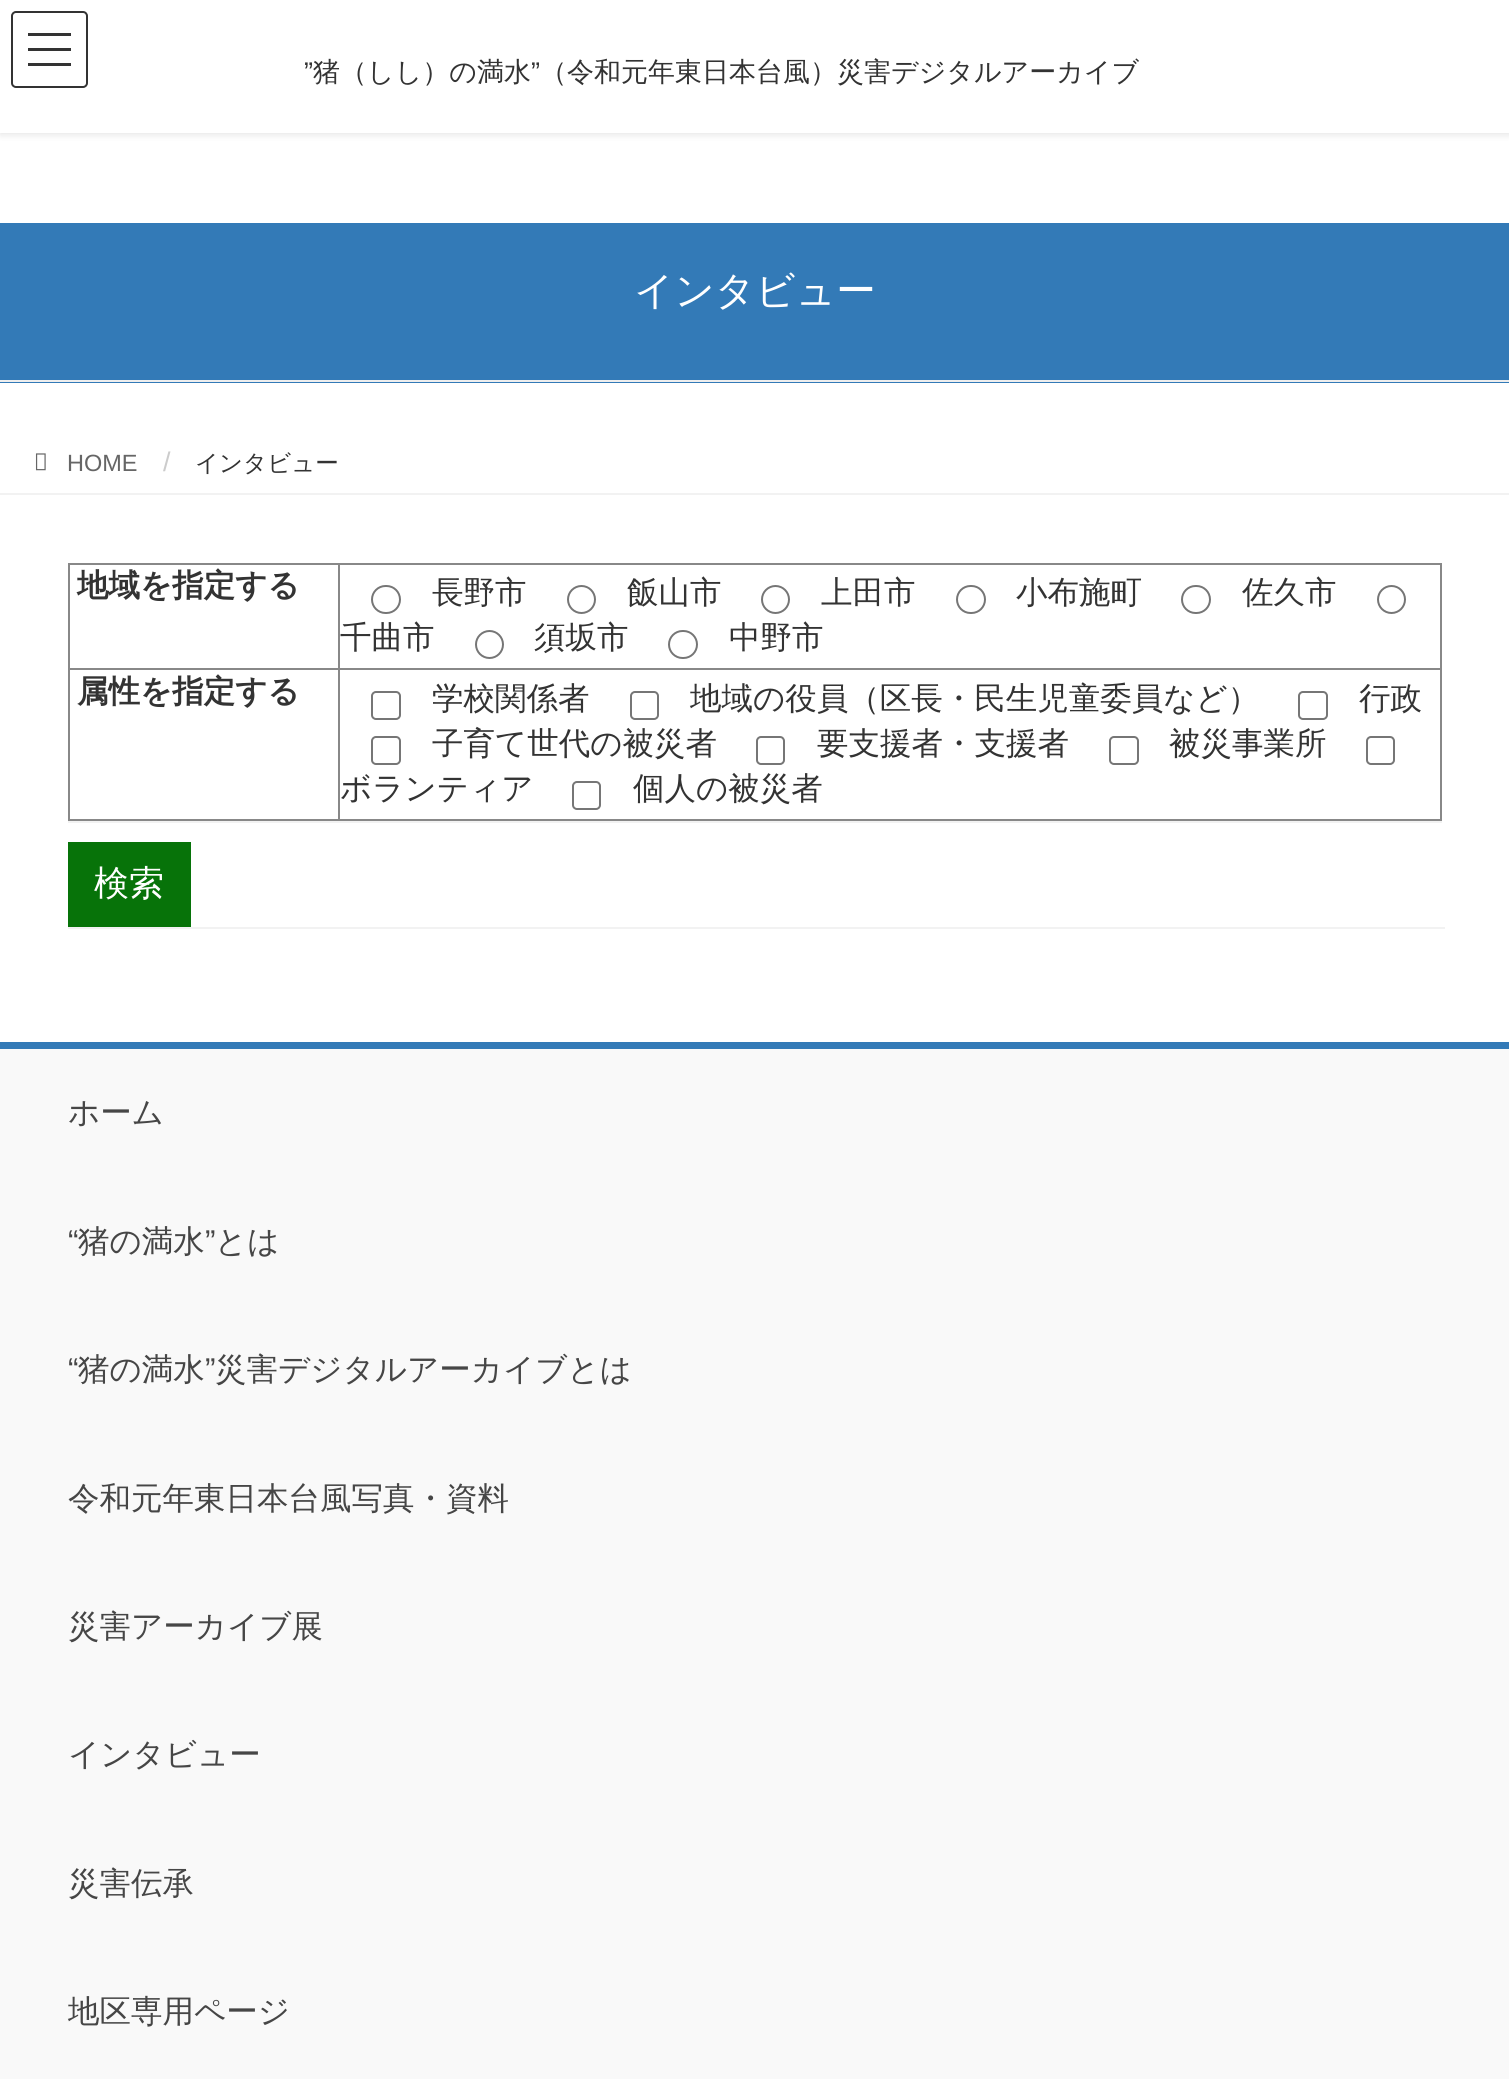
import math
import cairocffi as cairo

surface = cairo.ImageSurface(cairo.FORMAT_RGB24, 1509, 2079)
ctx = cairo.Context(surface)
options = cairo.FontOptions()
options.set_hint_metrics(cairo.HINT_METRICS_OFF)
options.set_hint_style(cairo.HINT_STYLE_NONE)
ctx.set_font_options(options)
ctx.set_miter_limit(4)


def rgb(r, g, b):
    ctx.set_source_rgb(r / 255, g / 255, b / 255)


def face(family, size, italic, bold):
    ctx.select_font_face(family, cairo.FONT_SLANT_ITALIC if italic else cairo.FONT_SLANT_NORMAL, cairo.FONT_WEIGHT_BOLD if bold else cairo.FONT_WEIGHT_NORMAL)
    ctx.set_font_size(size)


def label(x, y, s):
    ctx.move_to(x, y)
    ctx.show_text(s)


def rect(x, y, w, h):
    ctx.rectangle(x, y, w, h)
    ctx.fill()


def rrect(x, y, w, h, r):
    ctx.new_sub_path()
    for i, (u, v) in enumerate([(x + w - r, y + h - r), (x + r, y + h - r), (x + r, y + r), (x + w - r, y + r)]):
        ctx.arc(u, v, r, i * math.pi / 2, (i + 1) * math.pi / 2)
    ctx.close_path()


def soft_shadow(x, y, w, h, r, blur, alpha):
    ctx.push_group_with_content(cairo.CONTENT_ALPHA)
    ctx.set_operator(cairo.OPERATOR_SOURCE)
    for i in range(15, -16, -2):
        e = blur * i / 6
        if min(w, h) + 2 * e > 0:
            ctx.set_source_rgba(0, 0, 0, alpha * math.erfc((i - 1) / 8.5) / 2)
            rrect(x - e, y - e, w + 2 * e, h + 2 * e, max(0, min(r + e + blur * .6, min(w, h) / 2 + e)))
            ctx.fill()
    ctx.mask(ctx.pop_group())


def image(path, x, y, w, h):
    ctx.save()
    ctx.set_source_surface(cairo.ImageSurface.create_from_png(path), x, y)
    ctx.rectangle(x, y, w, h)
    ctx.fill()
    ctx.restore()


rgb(255, 255, 255)
ctx.paint()
rgb(0, 0, 0)
soft_shadow(0, 2, 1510, 133, 0, 3.5, 0.1)
rgb(255, 255, 255)
rect(0, 0, 1509, 133)
rgb(51, 51, 51)
rect(28, 33, 43, 3)
rect(28, 48, 43, 3)
rect(28, 63, 43, 3)
rrect(12, 12, 75, 75, 4)
ctx.stroke()
face('Liberation Sans', 27, 0, 0)
label(304, 81, '”')
face('WenQuanYi Zen Hei Medium', 27, 0, 0)
label(313, 81, '猪（しし）の満水')
face('Liberation Sans', 27, 0, 0)
label(531, 81, '”')
face('WenQuanYi Zen Hei Medium', 27, 0, 0)
label(540, 81, '（令和元年東日本台風）災害デジタルアーカイブ')
rgb(51, 122, 183)
rect(0, 223, 1509, 160)
rgb(238, 238, 238)
rect(0, 380, 1509, 2)
face('WenQuanYi Zen Hei Medium', 39.5, 0, 0)
rgb(255, 255, 255)
label(634, 304, 'インタビュー')
rgb(242, 242, 242)
rect(0, 493, 1509, 2)
image('image0.png', 35, 453, 11, 18)
face('Liberation Sans', 23.5, 0, 0)
rgb(102, 102, 102)
label(67, 471, 'HOME')
face('Liberation Sans', 27, 0, 0)
rgb(204, 204, 204)
label(163, 471, '/')
face('WenQuanYi Zen Hei Medium', 23.5, 0, 0)
rgb(51, 51, 51)
label(195, 471, 'インタビュー')
rgb(136, 136, 136)
rect(338, 563, 1104, 2)
rect(338, 668, 1104, 2)
rect(1440, 668, 2, 153)
rect(338, 819, 1104, 2)
rect(338, 668, 2, 153)
rect(68, 668, 272, 2)
rect(338, 563, 2, 108)
rect(68, 563, 272, 2)
rect(68, 819, 272, 2)
rect(68, 668, 2, 153)
rect(68, 563, 2, 108)
face('WenQuanYi Zen Hei', 31.5, 0, 1)
rgb(51, 51, 51)
label(77, 596, '地域を指定する')
rgb(136, 136, 136)
rect(1440, 563, 2, 108)
rrect(372, 586, 28, 27, 13.5)
rgb(118, 118, 118)
ctx.stroke()
face('WenQuanYi Zen Hei Medium', 31.5, 0, 0)
rgb(51, 51, 51)
label(432, 603, '長野市')
ctx.new_path()
ctx.arc(581.5, 599.5, 13.5, 0, 2 * math.pi)
rgb(118, 118, 118)
ctx.stroke()
rgb(51, 51, 51)
label(627, 603, '飯山市')
ctx.new_path()
ctx.arc(775.5, 599.5, 13.5, 0, 2 * math.pi)
rgb(118, 118, 118)
ctx.stroke()
rgb(51, 51, 51)
label(821, 603, '上田市')
rrect(957, 586, 28, 27, 13.5)
rgb(118, 118, 118)
ctx.stroke()
rgb(51, 51, 51)
label(1016, 603, '小布施町')
rrect(1182, 586, 28, 27, 13.5)
rgb(118, 118, 118)
ctx.stroke()
rgb(51, 51, 51)
label(1242, 603, '佐久市')
ctx.new_path()
ctx.arc(1391.5, 599.5, 13.5, 0, 2 * math.pi)
rgb(118, 118, 118)
ctx.stroke()
rgb(51, 51, 51)
label(340, 648, '千曲市')
ctx.new_path()
ctx.arc(489.5, 644.5, 13.5, 0, 2 * math.pi)
rgb(118, 118, 118)
ctx.stroke()
rgb(51, 51, 51)
label(534, 648, '須坂市')
rrect(669, 631, 28, 27, 13.5)
rgb(118, 118, 118)
ctx.stroke()
rgb(51, 51, 51)
label(729, 648, '中野市')
face('WenQuanYi Zen Hei', 31.5, 0, 1)
label(77, 702, '属性を指定する')
rrect(372, 692, 28, 27, 4)
rgb(118, 118, 118)
ctx.stroke()
face('WenQuanYi Zen Hei Medium', 31.5, 0, 0)
rgb(51, 51, 51)
label(432, 709, '学校関係者')
rrect(631, 692, 27, 27, 4)
rgb(118, 118, 118)
ctx.stroke()
rgb(51, 51, 51)
label(690, 709, '地域の役員（区長・民生児童委員など）')
rrect(1299, 692, 28, 27, 4)
rgb(118, 118, 118)
ctx.stroke()
rgb(51, 51, 51)
label(1359, 709, '行政')
rrect(372, 737, 28, 27, 4)
rgb(118, 118, 118)
ctx.stroke()
rgb(51, 51, 51)
label(432, 754, '子育て世代の被災者')
rrect(757, 737, 27, 27, 4)
rgb(118, 118, 118)
ctx.stroke()
rgb(51, 51, 51)
label(817, 754, '要支援者・支援者')
rrect(1110, 737, 28, 27, 4)
rgb(118, 118, 118)
ctx.stroke()
rgb(51, 51, 51)
label(1169, 754, '被災事業所')
rrect(1367, 737, 27, 27, 4)
rgb(118, 118, 118)
ctx.stroke()
rgb(51, 51, 51)
label(340, 799, 'ボランティア')
rrect(573, 782, 27, 27, 4)
rgb(118, 118, 118)
ctx.stroke()
rgb(51, 51, 51)
label(633, 799, '個人の被災者')
rgb(242, 242, 242)
rect(68, 821, 1374, 2)
rect(68, 927, 1377, 2)
rgb(7, 115, 9)
rect(68, 842, 123, 85)
face('WenQuanYi Zen Hei Medium', 35, 0, 0)
rgb(255, 255, 255)
label(94, 895, '検索')
rgb(249, 249, 249)
rect(0, 1049, 1509, 1030)
rgb(51, 122, 183)
rect(0, 1042, 1509, 7)
face('WenQuanYi Zen Hei Medium', 31.5, 0, 0)
rgb(70, 70, 70)
label(68, 1123, 'ホーム')
face('Liberation Sans', 31.5, 0, 0)
label(68, 1252, '“')
face('WenQuanYi Zen Hei Medium', 31.5, 0, 0)
label(78, 1252, '猪の満水')
face('Liberation Sans', 31.5, 0, 0)
label(205, 1252, '”')
face('WenQuanYi Zen Hei Medium', 31.5, 0, 0)
label(215, 1252, 'とは')
face('Liberation Sans', 31.5, 0, 0)
label(68, 1380, '“')
face('WenQuanYi Zen Hei Medium', 31.5, 0, 0)
label(78, 1380, '猪の満水')
face('Liberation Sans', 31.5, 0, 0)
label(205, 1380, '”')
face('WenQuanYi Zen Hei Medium', 31.5, 0, 0)
label(215, 1380, '災害デジタルアーカイブとは')
label(68, 1509, '令和元年東日本台風写真・資料')
label(68, 1637, '災害アーカイブ展')
label(68, 1765, 'インタビュー')
label(68, 1894, '災害伝承')
label(68, 2022, '地区専用ページ')
surface.write_to_png('render.png')
